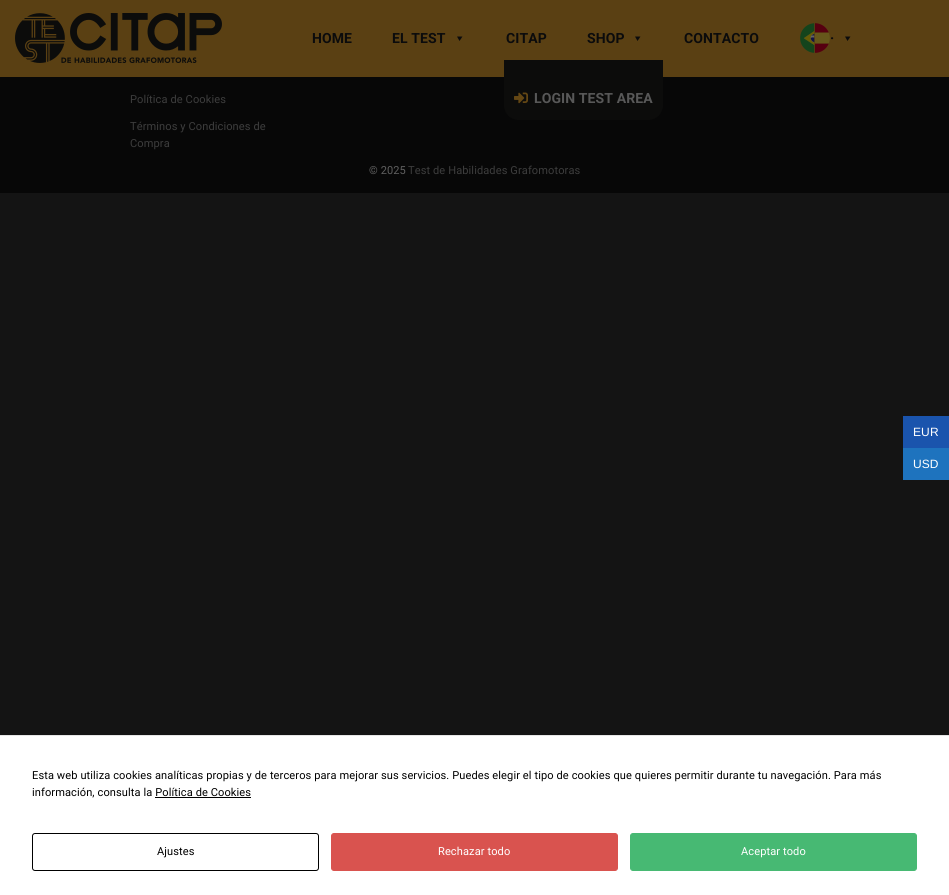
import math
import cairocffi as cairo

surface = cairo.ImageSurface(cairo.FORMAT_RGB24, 949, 895)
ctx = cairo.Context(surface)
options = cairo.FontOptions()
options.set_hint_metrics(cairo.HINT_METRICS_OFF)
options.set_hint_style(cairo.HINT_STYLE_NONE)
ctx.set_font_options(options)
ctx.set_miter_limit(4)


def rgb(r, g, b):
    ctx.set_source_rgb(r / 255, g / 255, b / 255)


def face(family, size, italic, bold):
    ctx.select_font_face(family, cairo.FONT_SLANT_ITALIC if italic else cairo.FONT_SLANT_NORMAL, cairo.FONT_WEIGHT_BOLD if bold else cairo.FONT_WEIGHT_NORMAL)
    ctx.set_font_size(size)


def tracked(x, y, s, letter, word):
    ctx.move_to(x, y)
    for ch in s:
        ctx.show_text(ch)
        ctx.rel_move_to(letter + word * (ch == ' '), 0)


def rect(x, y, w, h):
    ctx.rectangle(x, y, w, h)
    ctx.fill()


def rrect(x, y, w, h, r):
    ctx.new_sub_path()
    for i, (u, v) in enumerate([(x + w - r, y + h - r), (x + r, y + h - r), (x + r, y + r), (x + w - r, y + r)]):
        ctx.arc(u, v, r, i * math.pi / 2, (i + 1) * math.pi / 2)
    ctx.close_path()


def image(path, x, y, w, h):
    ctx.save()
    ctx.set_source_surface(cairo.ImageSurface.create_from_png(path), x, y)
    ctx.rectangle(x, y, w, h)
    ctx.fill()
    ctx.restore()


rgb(20, 20, 20)
ctx.paint()
rgb(90, 64, 19)
rect(0, 0, 949, 77)
image('image0.png', 15, 13, 207, 50)
face('Roboto', 14, 0, 1)
rgb(11, 11, 12)
tracked(312, 43, 'HOME', 0.1, 0)
tracked(392, 43, 'EL TEST', 0.1, 0)
ctx.new_path()
ctx.move_to(462.5, 36.5)
ctx.line_to(459.5, 41)
ctx.line_to(457, 36.5)
ctx.close_path()
ctx.fill()
tracked(506, 43, 'CITAP', 0.1, 0)
tracked(587, 43, 'SHOP', 0.1, 0)
ctx.new_path()
ctx.move_to(640.5, 36.5)
ctx.line_to(637.5, 41)
ctx.line_to(635, 36.5)
ctx.close_path()
ctx.fill()
tracked(684, 43, 'CONTACTO', 0.1, 0)
image('image1.png', 800, 23, 30, 30)
tracked(830, 43, '·', 0.1, 0)
ctx.new_path()
ctx.move_to(850.5, 36.5)
ctx.line_to(847.5, 41)
ctx.line_to(845, 36.5)
ctx.close_path()
ctx.fill()
rgb(7, 7, 7)
rect(0, 77, 949, 116)
rgb(12, 12, 11)
ctx.new_path()
ctx.move_to(504, 60)
ctx.line_to(663, 60)
ctx.line_to(663, 105)
ctx.curve_to(663, 113.5, 656.5, 120, 648, 120)
ctx.line_to(519, 120)
ctx.curve_to(510.5, 120, 504, 113.5, 504, 105)
ctx.close_path()
ctx.fill()
image('image2.png', 514, 92, 14, 12)
rgb(88, 88, 88)
tracked(534, 103, 'LOGIN TEST AREA', 0.1, 0)
face('Roboto', 11.05, 0, 0)
rgb(61, 61, 61)
tracked(130, 103, 'Política de Cookies', 0.1, 0)
tracked(130, 130, 'Términos y Condiciones de', 0.1, 0)
tracked(130, 147, 'Compra', 0.1, 0)
rgb(95, 95, 95)
tracked(369, 174, '© 2025', 0.1, 0)
rgb(61, 61, 61)
tracked(408, 174, 'Test de Habilidades Grafomotoras', 0.1, 0)
rgb(26, 84, 173)
rect(903, 416, 46, 32)
face('Liberation Sans', 12, 0, 0)
rgb(255, 255, 255)
tracked(913, 436, 'EUR', 0.1, 0)
rgb(30, 115, 190)
rect(903, 448, 46, 32)
rgb(255, 255, 255)
tracked(913, 468, 'USD', 0.1, 0)
rect(0, 736, 949, 159)
rgb(230, 230, 230)
rect(0, 735, 949, 1)
face('Roboto', 11.05, 0, 0)
rgb(0, 0, 0)
tracked(32, 779, 'Esta web utiliza cookies analíticas propias y de terceros para mejorar sus servicios. Puedes elegir el tipo de cookies que quieres permitir durante tu navegación. Para más', 0.1, 0)
tracked(32, 796, 'información, consulta la Política de Cookies', 0.1, 0)
rect(155, 797, 96, 1)
rrect(32.5, 833.5, 286, 37, 2.5)
ctx.set_line_width(1)
ctx.stroke()
tracked(157, 855, 'Ajustes', 0.1, 0)
rgb(217, 83, 79)
rrect(331.5, 833.5, 286, 37, 2.5)
ctx.fill_preserve()
ctx.stroke()
rgb(255, 255, 255)
tracked(438, 855, 'Rechazar todo', 0.1, 0)
rgb(71, 185, 115)
rrect(630.5, 833.5, 286, 37, 2.5)
ctx.fill_preserve()
ctx.stroke()
rgb(255, 255, 255)
tracked(741, 855, 'Aceptar todo', 0.1, 0)
surface.write_to_png('render.png')
